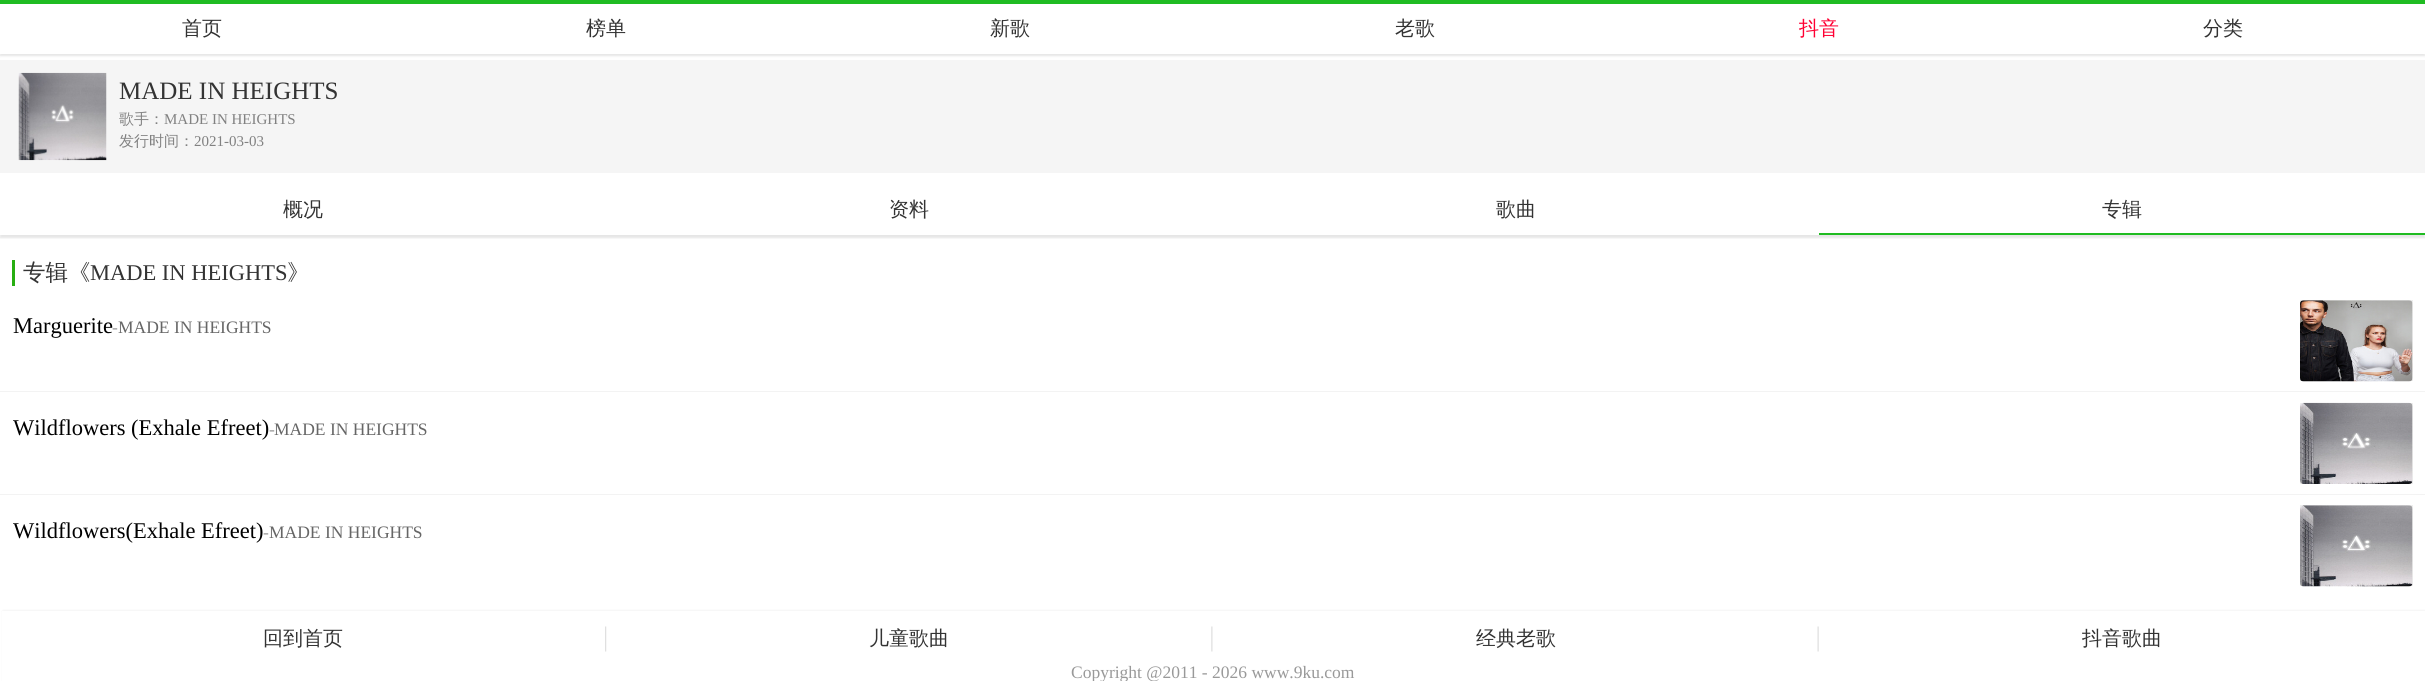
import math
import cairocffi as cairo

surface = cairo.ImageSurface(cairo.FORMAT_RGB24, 2425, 681)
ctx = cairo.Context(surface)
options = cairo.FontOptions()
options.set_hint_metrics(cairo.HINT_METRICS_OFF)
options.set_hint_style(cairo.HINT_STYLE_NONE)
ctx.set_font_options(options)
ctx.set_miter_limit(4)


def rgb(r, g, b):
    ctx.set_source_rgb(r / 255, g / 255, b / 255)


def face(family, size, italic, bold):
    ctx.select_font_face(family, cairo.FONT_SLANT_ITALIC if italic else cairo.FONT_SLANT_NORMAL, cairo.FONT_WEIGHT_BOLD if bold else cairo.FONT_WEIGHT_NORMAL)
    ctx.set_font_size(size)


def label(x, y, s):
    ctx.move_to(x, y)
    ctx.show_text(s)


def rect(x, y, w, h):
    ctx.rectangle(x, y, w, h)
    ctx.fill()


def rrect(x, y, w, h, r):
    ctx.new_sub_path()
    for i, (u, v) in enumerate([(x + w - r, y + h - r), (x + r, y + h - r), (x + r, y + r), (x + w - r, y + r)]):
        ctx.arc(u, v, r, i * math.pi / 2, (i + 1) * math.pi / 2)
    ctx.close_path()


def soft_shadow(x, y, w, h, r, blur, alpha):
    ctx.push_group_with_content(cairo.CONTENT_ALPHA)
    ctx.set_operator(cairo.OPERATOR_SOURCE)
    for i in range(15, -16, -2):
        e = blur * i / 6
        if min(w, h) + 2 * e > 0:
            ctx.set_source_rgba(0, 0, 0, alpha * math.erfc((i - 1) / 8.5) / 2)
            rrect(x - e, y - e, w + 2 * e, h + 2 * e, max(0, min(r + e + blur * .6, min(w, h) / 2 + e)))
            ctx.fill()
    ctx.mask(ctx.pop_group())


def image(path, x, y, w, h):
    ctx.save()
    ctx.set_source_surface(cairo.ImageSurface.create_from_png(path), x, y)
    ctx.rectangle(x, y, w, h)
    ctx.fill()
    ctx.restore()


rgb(255, 255, 255)
ctx.paint()
ctx.save()
ctx.set_fill_rule(cairo.FILL_RULE_EVEN_ODD)
ctx.new_path()
ctx.move_to(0, 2)
ctx.line_to(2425, 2)
ctx.line_to(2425, 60)
ctx.line_to(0, 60)
ctx.close_path()
ctx.move_to(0, 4)
ctx.line_to(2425, 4)
ctx.line_to(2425, 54)
ctx.line_to(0, 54)
ctx.close_path()
ctx.clip()
rgb(0, 0, 0)
soft_shadow(0, 6, 2425, 50, 0, 1, 0.1)
ctx.restore()
rgb(32, 188, 34)
rect(0, 0, 2425, 4)
ctx.set_source_rgba(1, 1, 1, 0.9)
rect(0, 53, 2425, 1)
face('WenQuanYi Zen Hei Medium', 20, 0, 0)
rgb(51, 51, 51)
label(182, 35, '首页')
label(586, 35, '榜单')
label(990, 35, '新歌')
label(1395, 35, '老歌')
rgb(255, 0, 51)
label(1799, 35, '抖音')
rgb(51, 51, 51)
label(2203, 35, '分类')
rgb(245, 245, 245)
rect(0, 60, 2425, 113)
image('image0.png', 18, 72, 89, 89)
face('Liberation Serif', 25, 0, 0)
rgb(51, 51, 51)
label(119, 99, 'MADE IN HEIGHTS')
face('WenQuanYi Zen Hei Medium', 15, 0, 0)
rgb(129, 129, 129)
label(119, 124, '歌手：')
face('Liberation Serif', 15, 0, 0)
label(164, 124, 'MADE IN HEIGHTS')
face('WenQuanYi Zen Hei Medium', 15, 0, 0)
label(119, 146, '发行时间：')
face('Liberation Serif', 15, 0, 0)
label(194, 146, '2021-03-03')
ctx.save()
ctx.rectangle(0, 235, 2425, 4)
ctx.clip()
rgb(0, 0, 0)
soft_shadow(0, 188, 2425, 50, 0, 1, 0.1)
ctx.restore()
face('WenQuanYi Zen Hei Medium', 20, 0, 0)
rgb(51, 51, 51)
label(283, 216, '概况')
label(889, 216, '资料')
label(1496, 216, '歌曲')
rgb(32, 188, 34)
rect(1819, 233, 606, 2)
rgb(51, 51, 51)
label(2102, 216, '专辑')
rgb(40, 174, 18)
rect(12, 260, 3, 26)
face('WenQuanYi Zen Hei Medium', 22.5, 0, 0)
rgb(51, 51, 51)
label(23, 280, '专辑《')
face('Liberation Serif', 22.5, 0, 0)
label(90, 280, 'MADE IN HEIGHTS')
face('WenQuanYi Zen Hei Medium', 22.5, 0, 0)
label(287, 280, '》')
rgb(243, 243, 243)
rect(0, 391, 2425, 1)
face('Liberation Serif', 22.5, 0, 0)
rgb(0, 0, 0)
label(13, 333, 'Marguerite')
face('Liberation Serif', 17.5, 0, 0)
rgb(153, 153, 153)
label(112, 333, '-')
rgb(102, 102, 102)
label(118, 333, 'MADE IN HEIGHTS')
rgb(238, 238, 238)
rect(2300, 300, 113, 81)
image('image1.png', 2300, 300, 113, 82)
rgb(243, 243, 243)
rect(0, 494, 2425, 1)
face('Liberation Serif', 22.5, 0, 0)
rgb(0, 0, 0)
label(13, 435, 'Wildflowers (Exhale Efreet)')
face('Liberation Serif', 17.5, 0, 0)
rgb(153, 153, 153)
label(269, 435, '-')
rgb(102, 102, 102)
label(274, 435, 'MADE IN HEIGHTS')
rgb(238, 238, 238)
rect(2300, 403, 113, 81)
image('image2.png', 2300, 402, 113, 82)
face('Liberation Serif', 22.5, 0, 0)
rgb(0, 0, 0)
label(13, 538, 'Wildflowers(Exhale Efreet)')
face('Liberation Serif', 17.5, 0, 0)
rgb(153, 153, 153)
label(263, 538, '-')
rgb(102, 102, 102)
label(269, 538, 'MADE IN HEIGHTS')
rgb(238, 238, 238)
rect(2300, 505, 113, 81)
image('image3.png', 2300, 505, 113, 82)
rgb(0, 0, 0)
soft_shadow(3, 611, 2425, 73, 0, 1, 0.1)
rgb(255, 255, 255)
rect(2, 611, 2423, 70)
image('image4.png', 605, 626, 2, 26)
face('WenQuanYi Zen Hei Medium', 20, 0, 0)
rgb(51, 51, 51)
label(263, 645, '回到首页')
image('image5.png', 1211, 626, 2, 26)
label(869, 645, '儿童歌曲')
image('image6.png', 1817, 626, 2, 26)
label(1476, 645, '经典老歌')
label(2082, 645, '抖音歌曲')
face('Liberation Serif', 17.5, 0, 0)
rgb(153, 153, 153)
label(1071, 678, 'Copyright @2011 - 2026 www.9ku.com')
surface.write_to_png('render.png')
